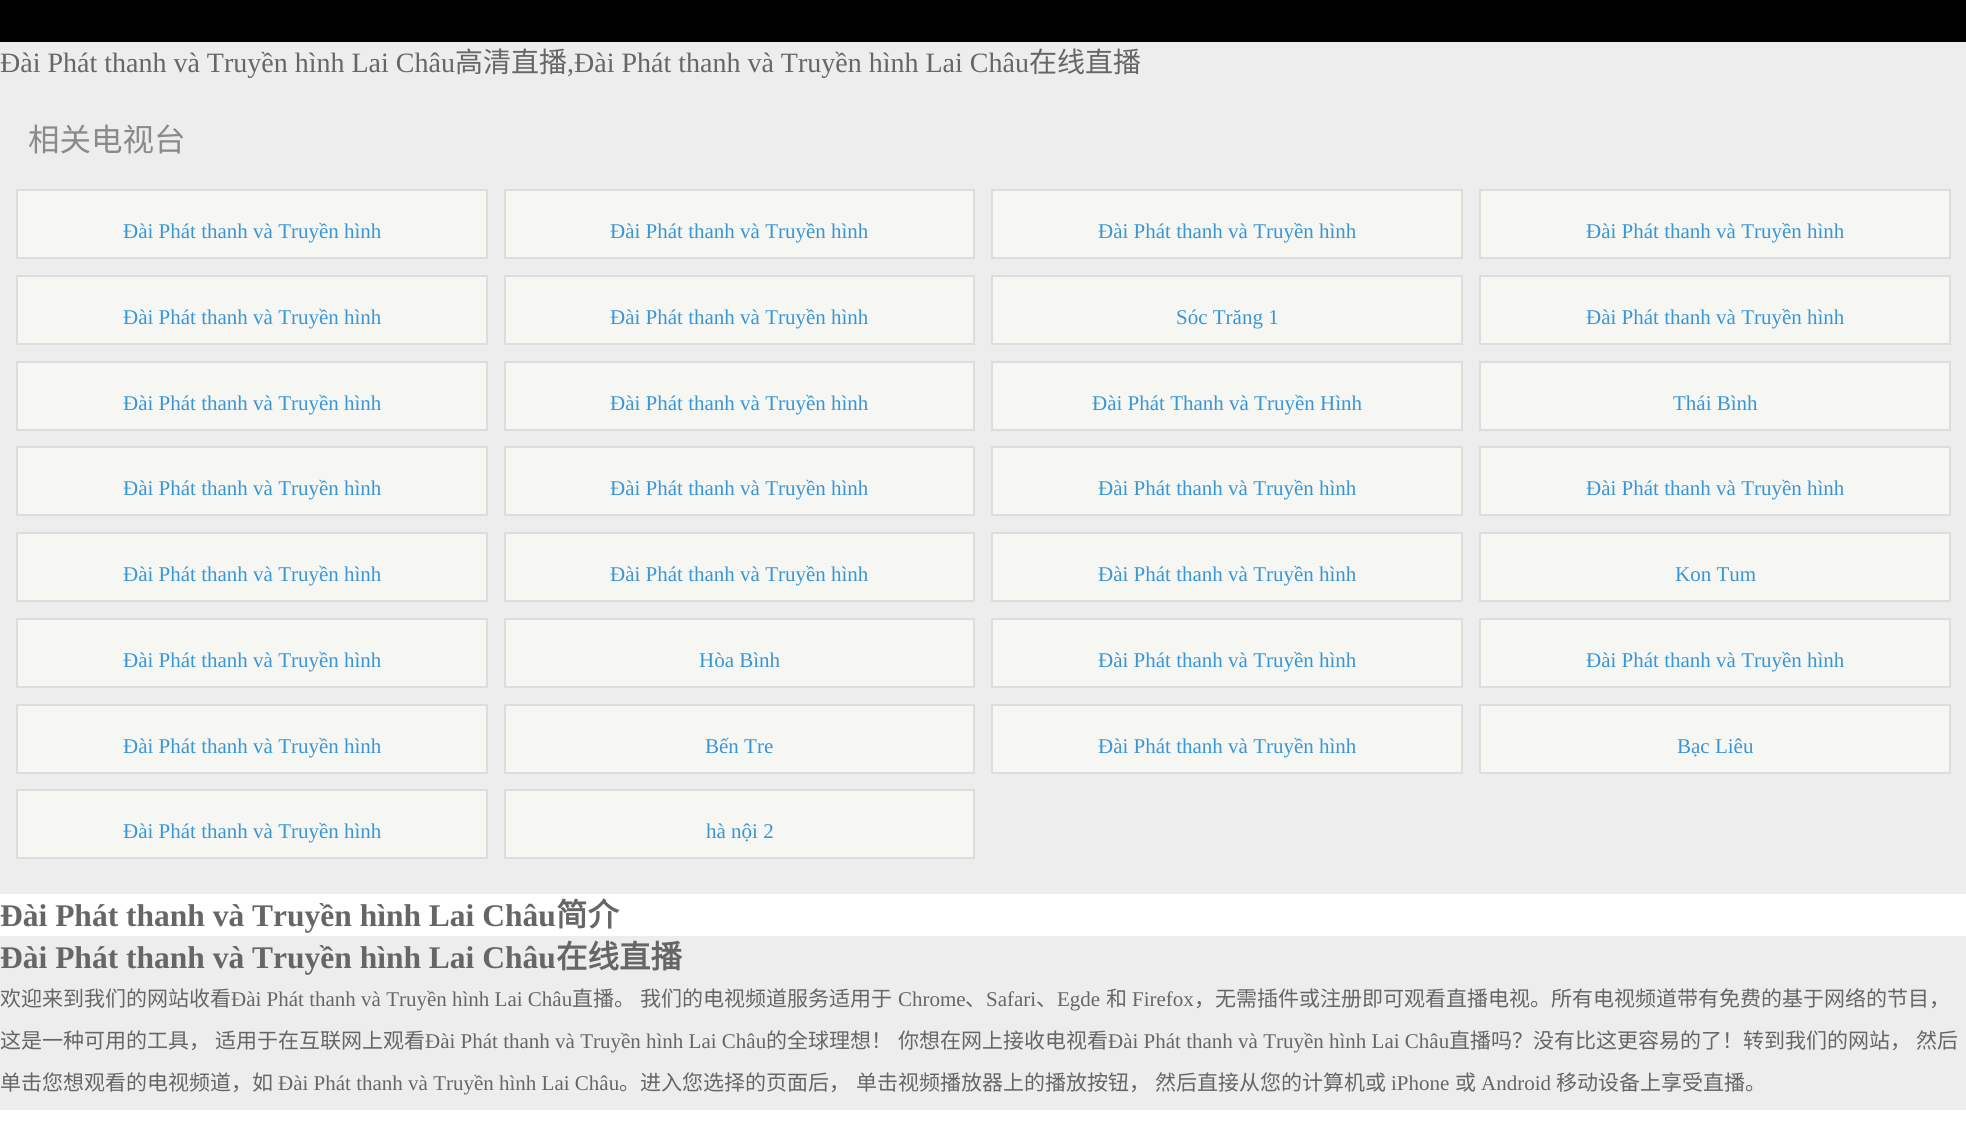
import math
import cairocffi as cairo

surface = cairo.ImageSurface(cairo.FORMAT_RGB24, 1966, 1140)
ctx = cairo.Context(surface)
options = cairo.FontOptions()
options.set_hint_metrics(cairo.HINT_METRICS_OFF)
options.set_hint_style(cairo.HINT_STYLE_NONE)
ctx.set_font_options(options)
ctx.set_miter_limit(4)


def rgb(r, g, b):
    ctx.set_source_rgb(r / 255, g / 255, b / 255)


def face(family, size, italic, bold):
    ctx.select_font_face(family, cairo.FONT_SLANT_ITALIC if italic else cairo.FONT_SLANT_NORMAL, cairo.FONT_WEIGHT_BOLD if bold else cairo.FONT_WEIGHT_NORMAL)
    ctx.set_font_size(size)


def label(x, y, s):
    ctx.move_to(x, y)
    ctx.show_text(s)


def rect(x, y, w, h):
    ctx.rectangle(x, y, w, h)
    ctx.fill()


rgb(237, 237, 237)
ctx.paint()
rgb(0, 0, 0)
rect(0, 0, 1966, 42)
face('Liberation Serif', 28, 0, 0)
rgb(102, 102, 102)
label(0, 72, 'Đài Phát thanh và Truyền hình Lai Châu')
face('Noto Sans CJK SC', 28, 0, 0)
label(455, 72, '高清直播')
face('Liberation Serif', 28, 0, 0)
label(567, 72, ',Đài Phát thanh và Truyền hình Lai Châu')
face('Noto Sans CJK SC', 28, 0, 0)
label(1029, 72, '在线直播')
face('Noto Sans CJK SC', 31.5, 0, 0)
rgb(138, 138, 138)
label(28, 151, '相关电视台')
rgb(246, 246, 243)
ctx.rectangle(17, 190, 470, 68)
ctx.fill_preserve()
rgb(221, 221, 221)
ctx.stroke()
face('Liberation Serif', 21, 0, 0)
rgb(56, 150, 215)
label(123, 238, 'Đài Phát thanh và Truyền hình')
rgb(246, 246, 243)
ctx.rectangle(505, 190, 469, 68)
ctx.fill_preserve()
rgb(221, 221, 221)
ctx.stroke()
rgb(56, 150, 215)
label(610, 238, 'Đài Phát thanh và Truyền hình')
rgb(246, 246, 243)
ctx.rectangle(992, 190, 470, 68)
ctx.fill_preserve()
rgb(221, 221, 221)
ctx.stroke()
rgb(56, 150, 215)
label(1098, 238, 'Đài Phát thanh và Truyền hình')
rgb(246, 246, 243)
ctx.rectangle(1480, 190, 470, 68)
ctx.fill_preserve()
rgb(221, 221, 221)
ctx.stroke()
rgb(56, 150, 215)
label(1586, 238, 'Đài Phát thanh và Truyền hình')
rgb(246, 246, 243)
ctx.rectangle(17, 276, 470, 68)
ctx.fill_preserve()
rgb(221, 221, 221)
ctx.stroke()
rgb(56, 150, 215)
label(123, 324, 'Đài Phát thanh và Truyền hình')
rgb(246, 246, 243)
ctx.rectangle(505, 276, 469, 68)
ctx.fill_preserve()
rgb(221, 221, 221)
ctx.stroke()
rgb(56, 150, 215)
label(610, 324, 'Đài Phát thanh và Truyền hình')
rgb(246, 246, 243)
ctx.rectangle(992, 276, 470, 68)
ctx.fill_preserve()
rgb(221, 221, 221)
ctx.stroke()
rgb(56, 150, 215)
label(1176, 324, 'Sóc Trăng 1')
rgb(246, 246, 243)
ctx.rectangle(1480, 276, 470, 68)
ctx.fill_preserve()
rgb(221, 221, 221)
ctx.stroke()
rgb(56, 150, 215)
label(1586, 324, 'Đài Phát thanh và Truyền hình')
rgb(246, 246, 243)
ctx.rectangle(17, 362, 470, 68)
ctx.fill_preserve()
rgb(221, 221, 221)
ctx.stroke()
rgb(56, 150, 215)
label(123, 410, 'Đài Phát thanh và Truyền hình')
rgb(246, 246, 243)
ctx.rectangle(505, 362, 469, 68)
ctx.fill_preserve()
rgb(221, 221, 221)
ctx.stroke()
rgb(56, 150, 215)
label(610, 410, 'Đài Phát thanh và Truyền hình')
rgb(246, 246, 243)
ctx.rectangle(992, 362, 470, 68)
ctx.fill_preserve()
rgb(221, 221, 221)
ctx.stroke()
rgb(56, 150, 215)
label(1092, 410, 'Đài Phát Thanh và Truyền Hình')
rgb(246, 246, 243)
ctx.rectangle(1480, 362, 470, 68)
ctx.fill_preserve()
rgb(221, 221, 221)
ctx.stroke()
rgb(56, 150, 215)
label(1673, 410, 'Thái Bình')
rgb(246, 246, 243)
ctx.rectangle(17, 447, 470, 68)
ctx.fill_preserve()
rgb(221, 221, 221)
ctx.stroke()
rgb(56, 150, 215)
label(123, 495, 'Đài Phát thanh và Truyền hình')
rgb(246, 246, 243)
ctx.rectangle(505, 447, 469, 68)
ctx.fill_preserve()
rgb(221, 221, 221)
ctx.stroke()
rgb(56, 150, 215)
label(610, 495, 'Đài Phát thanh và Truyền hình')
rgb(246, 246, 243)
ctx.rectangle(992, 447, 470, 68)
ctx.fill_preserve()
rgb(221, 221, 221)
ctx.stroke()
rgb(56, 150, 215)
label(1098, 495, 'Đài Phát thanh và Truyền hình')
rgb(246, 246, 243)
ctx.rectangle(1480, 447, 470, 68)
ctx.fill_preserve()
rgb(221, 221, 221)
ctx.stroke()
rgb(56, 150, 215)
label(1586, 495, 'Đài Phát thanh và Truyền hình')
rgb(246, 246, 243)
ctx.rectangle(17, 533, 470, 68)
ctx.fill_preserve()
rgb(221, 221, 221)
ctx.stroke()
rgb(56, 150, 215)
label(123, 581, 'Đài Phát thanh và Truyền hình')
rgb(246, 246, 243)
ctx.rectangle(505, 533, 469, 68)
ctx.fill_preserve()
rgb(221, 221, 221)
ctx.stroke()
rgb(56, 150, 215)
label(610, 581, 'Đài Phát thanh và Truyền hình')
rgb(246, 246, 243)
ctx.rectangle(992, 533, 470, 68)
ctx.fill_preserve()
rgb(221, 221, 221)
ctx.stroke()
rgb(56, 150, 215)
label(1098, 581, 'Đài Phát thanh và Truyền hình')
rgb(246, 246, 243)
ctx.rectangle(1480, 533, 470, 68)
ctx.fill_preserve()
rgb(221, 221, 221)
ctx.stroke()
rgb(56, 150, 215)
label(1675, 581, 'Kon Tum')
rgb(246, 246, 243)
ctx.rectangle(17, 619, 470, 68)
ctx.fill_preserve()
rgb(221, 221, 221)
ctx.stroke()
rgb(56, 150, 215)
label(123, 667, 'Đài Phát thanh và Truyền hình')
rgb(246, 246, 243)
ctx.rectangle(505, 619, 469, 68)
ctx.fill_preserve()
rgb(221, 221, 221)
ctx.stroke()
rgb(56, 150, 215)
label(699, 667, 'Hòa Bình')
rgb(246, 246, 243)
ctx.rectangle(992, 619, 470, 68)
ctx.fill_preserve()
rgb(221, 221, 221)
ctx.stroke()
rgb(56, 150, 215)
label(1098, 667, 'Đài Phát thanh và Truyền hình')
rgb(246, 246, 243)
ctx.rectangle(1480, 619, 470, 68)
ctx.fill_preserve()
rgb(221, 221, 221)
ctx.stroke()
rgb(56, 150, 215)
label(1586, 667, 'Đài Phát thanh và Truyền hình')
rgb(246, 246, 243)
ctx.rectangle(17, 705, 470, 68)
ctx.fill_preserve()
rgb(221, 221, 221)
ctx.stroke()
rgb(56, 150, 215)
label(123, 753, 'Đài Phát thanh và Truyền hình')
rgb(246, 246, 243)
ctx.rectangle(505, 705, 469, 68)
ctx.fill_preserve()
rgb(221, 221, 221)
ctx.stroke()
rgb(56, 150, 215)
label(705, 753, 'Bến Tre')
rgb(246, 246, 243)
ctx.rectangle(992, 705, 470, 68)
ctx.fill_preserve()
rgb(221, 221, 221)
ctx.stroke()
rgb(56, 150, 215)
label(1098, 753, 'Đài Phát thanh và Truyền hình')
rgb(246, 246, 243)
ctx.rectangle(1480, 705, 470, 68)
ctx.fill_preserve()
rgb(221, 221, 221)
ctx.stroke()
rgb(56, 150, 215)
label(1677, 753, 'Bạc Liêu')
rgb(246, 246, 243)
ctx.rectangle(17, 790, 470, 68)
ctx.fill_preserve()
rgb(221, 221, 221)
ctx.stroke()
rgb(56, 150, 215)
label(123, 838, 'Đài Phát thanh và Truyền hình')
rgb(246, 246, 243)
ctx.rectangle(505, 790, 469, 68)
ctx.fill_preserve()
rgb(221, 221, 221)
ctx.stroke()
rgb(56, 150, 215)
label(706, 838, 'hà nội 2')
rgb(255, 255, 255)
rect(0, 894, 1966, 42)
face('Liberation Serif', 31.5, 0, 1)
rgb(102, 102, 102)
label(0, 926, 'Đài Phát thanh và Truyền hình Lai Châu')
face('Noto Sans CJK SC', 31.5, 0, 1)
label(556, 926, '简介')
face('Liberation Serif', 31.5, 0, 1)
label(0, 968, 'Đài Phát thanh và Truyền hình Lai Châu')
face('Noto Sans CJK SC', 31.5, 0, 1)
label(556, 968, '在线直播')
face('Noto Sans CJK SC', 21, 0, 0)
label(0, 1006, '欢迎来到我们的网站收看')
face('Liberation Serif', 21, 0, 0)
label(231, 1006, 'Đài Phát thanh và Truyền hình Lai Châu')
face('Noto Sans CJK SC', 21, 0, 0)
label(572, 1006, '直播。')
label(640, 1006, '我们的电视频道服务适用于')
face('Liberation Serif', 21, 0, 0)
label(898, 1006, 'Chrome')
face('Noto Sans CJK SC', 21, 0, 0)
label(965, 1006, '、')
face('Liberation Serif', 21, 0, 0)
label(986, 1006, 'Safari')
face('Noto Sans CJK SC', 21, 0, 0)
label(1036, 1006, '、')
face('Liberation Serif', 21, 0, 0)
label(1057, 1006, 'Egde')
face('Noto Sans CJK SC', 21, 0, 0)
label(1106, 1006, '和')
face('Liberation Serif', 21, 0, 0)
label(1132, 1006, 'Firefox')
face('Noto Sans CJK SC', 21, 0, 0)
label(1194, 1006, '，无需插件或注册即可观看直播电视。所有电视频道带有免费的基于网络的节目，')
label(0, 1048, '这是一种可用的工具，')
label(215, 1048, '适用于在互联网上观看')
face('Liberation Serif', 21, 0, 0)
label(425, 1048, 'Đài Phát thanh và Truyền hình Lai Châu')
face('Noto Sans CJK SC', 21, 0, 0)
label(766, 1048, '的全球理想！')
label(898, 1048, '你想在网上接收电视看')
face('Liberation Serif', 21, 0, 0)
label(1108, 1048, 'Đài Phát thanh và Truyền hình Lai Châu')
face('Noto Sans CJK SC', 21, 0, 0)
label(1449, 1048, '直播吗？没有比这更容易的了！转到我们的网站，')
label(1916, 1048, '然后')
label(0, 1090, '单击您想观看的电视频道，如')
face('Liberation Serif', 21, 0, 0)
label(278, 1090, 'Đài Phát thanh và Truyền hình Lai Châu')
face('Noto Sans CJK SC', 21, 0, 0)
label(619, 1090, '。进入您选择的页面后，')
label(856, 1090, '单击视频播放器上的播放按钮，')
label(1155, 1090, '然后直接从您的计算机或')
face('Liberation Serif', 21, 0, 0)
label(1391, 1090, 'iPhone')
face('Noto Sans CJK SC', 21, 0, 0)
label(1455, 1090, '或')
face('Liberation Serif', 21, 0, 0)
label(1481, 1090, 'Android')
face('Noto Sans CJK SC', 21, 0, 0)
label(1556, 1090, '移动设备上享受直播。')
rgb(255, 255, 255)
rect(0, 1110, 1966, 30)
surface.write_to_png('render.png')
